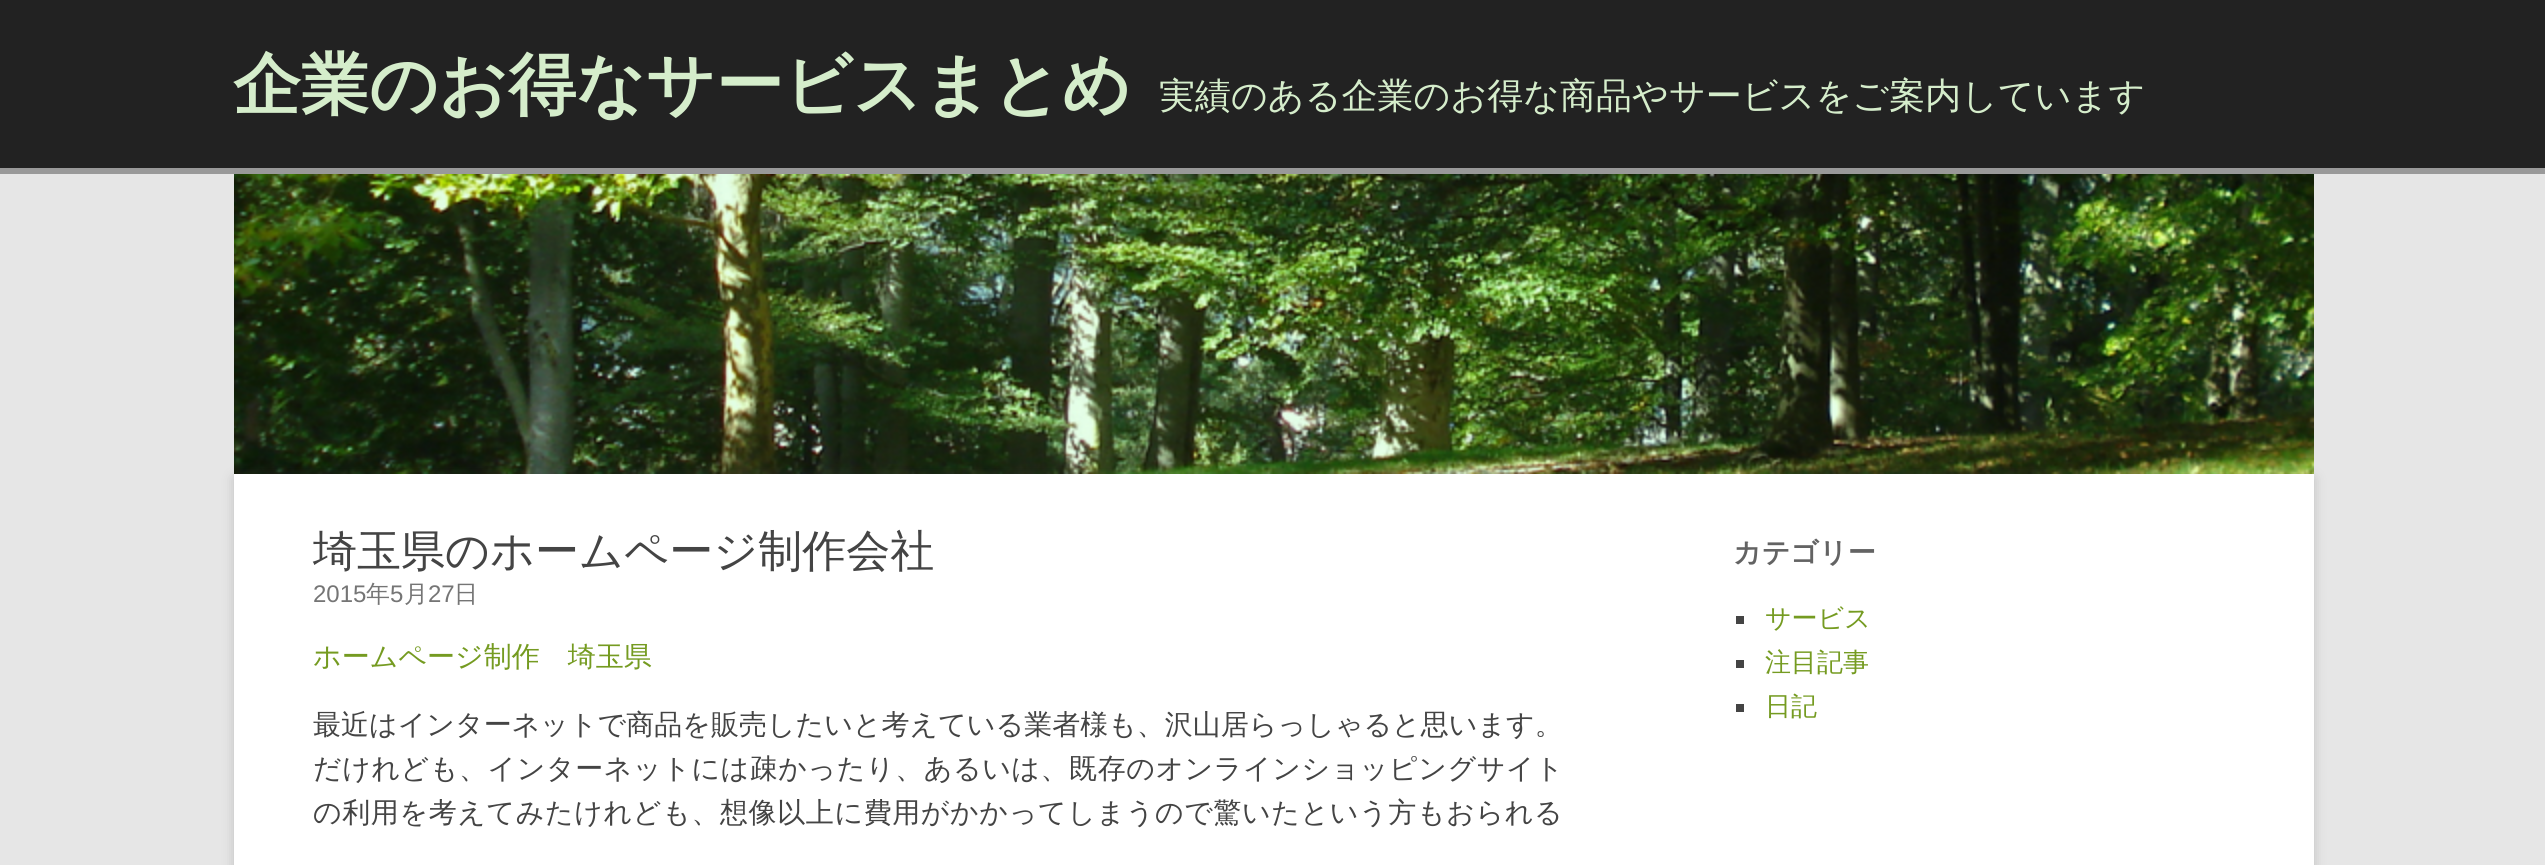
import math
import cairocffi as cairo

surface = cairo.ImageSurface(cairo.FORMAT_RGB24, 2545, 865)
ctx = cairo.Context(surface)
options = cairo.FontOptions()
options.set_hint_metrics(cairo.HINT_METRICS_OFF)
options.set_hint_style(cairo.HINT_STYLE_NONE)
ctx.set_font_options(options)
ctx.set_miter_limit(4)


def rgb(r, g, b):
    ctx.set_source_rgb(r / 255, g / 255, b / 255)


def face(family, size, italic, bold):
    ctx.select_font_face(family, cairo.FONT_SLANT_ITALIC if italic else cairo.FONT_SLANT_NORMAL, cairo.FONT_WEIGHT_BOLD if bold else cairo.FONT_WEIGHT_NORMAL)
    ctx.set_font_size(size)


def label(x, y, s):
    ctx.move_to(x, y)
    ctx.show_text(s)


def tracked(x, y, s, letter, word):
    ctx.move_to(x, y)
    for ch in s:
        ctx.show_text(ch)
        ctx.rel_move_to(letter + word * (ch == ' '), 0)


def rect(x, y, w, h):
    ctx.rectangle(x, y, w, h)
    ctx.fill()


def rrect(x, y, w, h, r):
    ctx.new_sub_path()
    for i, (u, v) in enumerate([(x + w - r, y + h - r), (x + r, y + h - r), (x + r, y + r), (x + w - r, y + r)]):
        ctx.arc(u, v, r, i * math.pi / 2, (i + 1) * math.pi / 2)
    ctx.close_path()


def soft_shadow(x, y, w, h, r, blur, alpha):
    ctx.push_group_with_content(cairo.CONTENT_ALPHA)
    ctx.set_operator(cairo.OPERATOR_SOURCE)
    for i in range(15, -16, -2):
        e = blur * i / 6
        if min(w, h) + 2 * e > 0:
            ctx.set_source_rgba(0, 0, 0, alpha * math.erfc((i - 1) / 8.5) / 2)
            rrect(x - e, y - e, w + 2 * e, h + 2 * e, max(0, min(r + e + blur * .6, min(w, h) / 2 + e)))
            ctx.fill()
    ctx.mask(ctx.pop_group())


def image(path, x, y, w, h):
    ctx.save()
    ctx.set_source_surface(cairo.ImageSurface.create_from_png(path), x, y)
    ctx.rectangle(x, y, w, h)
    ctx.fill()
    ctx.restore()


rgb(230, 230, 230)
ctx.paint()
rgb(34, 34, 34)
rect(0, 0, 2545, 168)
rgb(153, 153, 153)
rect(0, 168, 2545, 6)
face('WenQuanYi Zen Hei', 68, 0, 1)
rgb(213, 237, 203)
label(233, 108, '企業のお得なサービスまとめ')
face('WenQuanYi Zen Hei Medium', 36, 0, 0)
label(1159, 108, '実績のある企業のお得な商品やサービスをご案内しています')
image('image0.png', 234, 174, 2080, 300)
rgb(100, 100, 100)
soft_shadow(234, 478, 2080, 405, 0, 6, 0.3)
rgb(255, 255, 255)
rect(234, 474, 2080, 391)
face('WenQuanYi Zen Hei Medium', 44, 0, 0)
rgb(68, 68, 68)
label(313, 566, '埼玉県のホームページ制作会社')
face('Liberation Sans', 24, 0, 0)
rgb(117, 117, 117)
label(313, 602, '2015')
face('WenQuanYi Zen Hei Medium', 24, 0, 0)
label(366, 602, '年')
face('Liberation Sans', 24, 0, 0)
label(390, 602, '5')
face('WenQuanYi Zen Hei Medium', 24, 0, 0)
label(404, 602, '月')
face('Liberation Sans', 24, 0, 0)
label(428, 602, '27')
face('WenQuanYi Zen Hei Medium', 24, 0, 0)
label(454, 602, '日')
face('WenQuanYi Zen Hei Medium', 28, 0, 0)
rgb(117, 155, 33)
label(313, 666, 'ホームページ制作　埼玉県')
rgb(68, 68, 68)
label(313, 734, '最近はインターネットで商品を販売したいと考えている業者様も、沢山居らっしゃると思います。')
tracked(313, 778, 'だけれども、インターネットには疎かったり、あるいは、既存のオンラインショッピングサイト', 0.55, 0)
tracked(313, 822, 'の利用を考えてみたけれども、想像以上に費用がかかってしまうので驚いたという方もおられる', 0.6, 0)
face('WenQuanYi Zen Hei', 28, 0, 1)
rgb(99, 99, 99)
label(1733, 562, 'カテゴリー')
rgb(68, 68, 68)
rect(1736, 616, 8, 8)
face('WenQuanYi Zen Hei Medium', 26, 0, 0)
rgb(117, 155, 33)
label(1765, 627, 'サービス')
rgb(68, 68, 68)
rect(1736, 660, 8, 8)
rgb(117, 155, 33)
label(1765, 671, '注目記事')
rgb(68, 68, 68)
rect(1736, 704, 8, 8)
rgb(117, 155, 33)
label(1765, 715, '日記')
surface.write_to_png('render.png')
